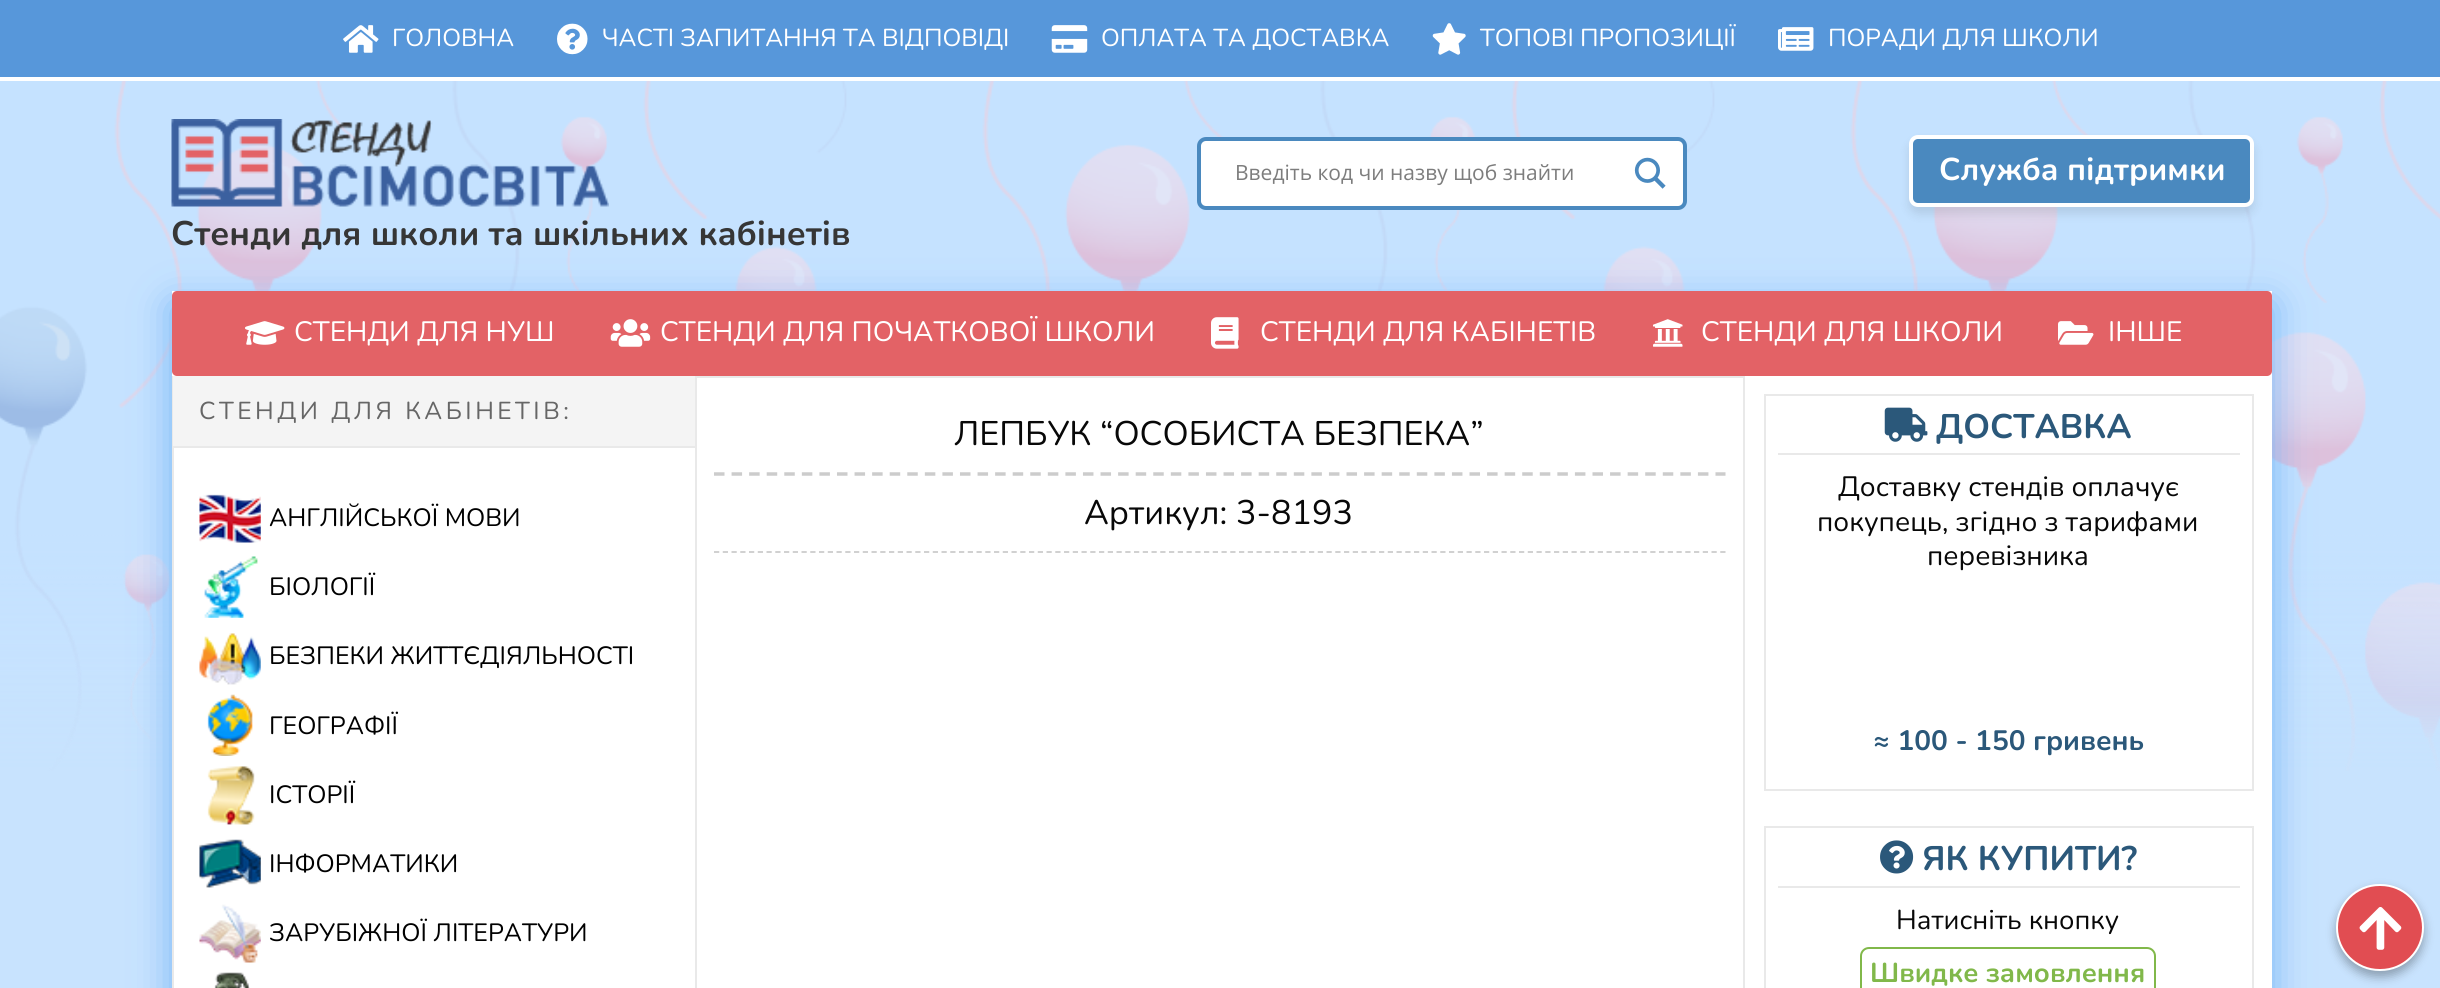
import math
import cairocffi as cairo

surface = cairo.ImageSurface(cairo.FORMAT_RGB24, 2440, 988)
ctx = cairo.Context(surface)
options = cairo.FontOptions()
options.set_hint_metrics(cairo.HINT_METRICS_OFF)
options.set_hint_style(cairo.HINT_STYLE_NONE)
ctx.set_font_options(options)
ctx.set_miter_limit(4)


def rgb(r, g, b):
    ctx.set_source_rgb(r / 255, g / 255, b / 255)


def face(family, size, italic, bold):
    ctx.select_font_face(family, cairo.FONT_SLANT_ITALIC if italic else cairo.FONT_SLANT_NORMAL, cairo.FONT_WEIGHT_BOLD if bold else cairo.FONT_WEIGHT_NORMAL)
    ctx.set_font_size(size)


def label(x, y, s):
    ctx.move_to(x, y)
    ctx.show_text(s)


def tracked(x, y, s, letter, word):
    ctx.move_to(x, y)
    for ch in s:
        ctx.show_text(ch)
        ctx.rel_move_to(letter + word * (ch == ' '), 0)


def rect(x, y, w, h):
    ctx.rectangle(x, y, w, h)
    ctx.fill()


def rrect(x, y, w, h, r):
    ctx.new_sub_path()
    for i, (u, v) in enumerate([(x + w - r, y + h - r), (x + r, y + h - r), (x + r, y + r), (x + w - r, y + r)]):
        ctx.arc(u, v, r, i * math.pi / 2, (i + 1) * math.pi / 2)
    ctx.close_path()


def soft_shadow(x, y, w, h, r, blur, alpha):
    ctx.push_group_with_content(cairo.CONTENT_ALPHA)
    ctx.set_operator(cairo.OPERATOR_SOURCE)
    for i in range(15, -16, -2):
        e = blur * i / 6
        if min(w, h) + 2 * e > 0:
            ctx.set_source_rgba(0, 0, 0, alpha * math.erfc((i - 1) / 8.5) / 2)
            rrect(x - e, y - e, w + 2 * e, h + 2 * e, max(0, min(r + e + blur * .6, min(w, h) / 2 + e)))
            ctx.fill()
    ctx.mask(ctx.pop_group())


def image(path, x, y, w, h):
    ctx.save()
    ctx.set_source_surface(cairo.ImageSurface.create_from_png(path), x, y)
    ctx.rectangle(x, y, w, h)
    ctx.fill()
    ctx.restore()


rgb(200, 227, 254)
ctx.paint()
image('image0.png', 0, 81, 2440, 690)
rgb(87, 151, 218)
rect(0, 0, 2440, 77)
rgb(255, 255, 255)
rect(0, 77, 2440, 4)
image('image1.png', 343, 25, 36, 28)
face('Nunito', 24.5, 0, 0)
label(392, 46, 'ГОЛОВНА')
image('image2.png', 557, 23, 31, 32)
label(602, 46, 'ЧАСТІ ЗАПИТАННЯ ТА ВІДПОВІДІ')
image('image3.png', 1051, 25, 37, 28)
label(1101, 46, 'ОПЛАТА ТА ДОСТАВКА')
image('image4.png', 1432, 23, 34, 32)
label(1480, 46, 'ТОПОВІ ПРОПОЗИЦІЇ')
image('image5.png', 1778, 27, 36, 24)
label(1828, 46, 'ПОРАДИ ДЛЯ ШКОЛИ')
rrect(1199, 139, 486, 69, 7)
ctx.fill_preserve()
rgb(74, 137, 191)
ctx.set_line_width(4)
ctx.stroke()
face('Open Sans', 21, 0, 0)
rgb(125, 125, 125)
label(1235, 180, 'Введіть код чи назву щоб знайти')
image('image6.png', 1634, 157, 32, 32)
rgb(0, 0, 0)
soft_shadow(1909, 142, 345, 72, 9, 5, 0.1)
rgb(74, 137, 191)
rrect(1911, 137, 341, 68, 7)
ctx.fill_preserve()
rgb(255, 255, 255)
ctx.stroke()
face('Nunito', 31.5, 0, 1)
label(1939, 180, 'Служба підтримки')
image('image7.png', 171, 119, 438, 88)
face('Nunito', 34.1, 0, 1)
rgb(54, 54, 54)
label(171, 245, 'Стенди для школи та шкільних кабінетів')
rgb(118, 181, 246)
soft_shadow(172, 305, 2100, 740, 0, 19, 1)
rgb(255, 255, 255)
rect(172, 291, 2100, 697)
rgb(227, 98, 102)
rrect(172, 291, 2100, 85, 5)
ctx.fill()
image('image8.png', 245, 321, 40, 24)
face('Nunito', 28, 0, 0)
rgb(255, 255, 255)
label(294, 341, 'СТЕНДИ ДЛЯ НУШ')
image('image9.png', 610, 319, 41, 28)
label(660, 341, 'СТЕНДИ ДЛЯ ПОЧАТКОВОЇ ШКОЛИ')
image('image10.png', 1211, 317, 28, 32)
label(1260, 341, 'СТЕНДИ ДЛЯ КАБІНЕТІВ')
image('image11.png', 1653, 319, 30, 28)
label(1701, 341, 'СТЕНДИ ДЛЯ ШКОЛИ')
image('image12.png', 2058, 321, 36, 24)
label(2108, 341, 'ІНШЕ')
rgb(233, 233, 233)
rect(172, 376, 2, 612)
rgb(244, 244, 244)
rect(173, 376, 522, 70)
rgb(233, 233, 233)
rect(173, 446, 522, 2)
face('Nunito', 24.5, 0, 0)
rgb(102, 102, 102)
tracked(199, 419, 'СТЕНДИ ДЛЯ КАБІНЕТІВ:', 3.5, 0)
image('image13.png', 199, 494, 62, 49)
face('Nunito', 25, 0, 0)
rgb(0, 0, 0)
label(269, 526, 'АНГЛІЙСЬКОЇ МОВИ')
image('image14.png', 204, 556, 54, 62)
label(269, 595, 'БІОЛОГІЇ')
image('image15.png', 199, 633, 62, 52)
label(269, 664, 'БЕЗПЕКИ ЖИТТЄДІЯЛЬНОСТІ')
image('image16.png', 207, 694, 46, 62)
label(269, 734, 'ГЕОГРАФІЇ')
image('image17.png', 207, 766, 48, 59)
label(269, 803, 'ІСТОРІЇ')
image('image18.png', 199, 839, 62, 49)
label(269, 872, 'ІНФОРМАТИКИ')
image('image19.png', 199, 904, 62, 59)
label(269, 941, 'ЗАРУБІЖНОЇ ЛІТЕРАТУРИ')
image('image20.png', 214, 972, 36, 16)
ctx.rectangle(696, 377, 1048, 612)
rgb(233, 233, 233)
ctx.set_line_width(2)
ctx.stroke()
ctx.new_path()
ctx.move_to(714, 474)
ctx.line_to(1725.5, 474)
rgb(204, 204, 204)
ctx.set_line_width(3.5)
ctx.set_dash([10.5, 7.07])
ctx.stroke()
face('Nunito', 34.1, 0, 0)
rgb(8, 8, 8)
label(954, 445, 'ЛЕПБУК “ОСОБИСТА БЕЗПЕКА”')
ctx.new_path()
ctx.move_to(714, 552)
ctx.line_to(1725.5, 552)
rgb(204, 204, 204)
ctx.set_line_width(1.8)
ctx.set_dash([5.25, 3.5])
ctx.stroke()
rgb(8, 8, 8)
label(1084, 524, 'Артикул: 3-8193')
ctx.rectangle(1765, 395, 488, 395)
rgb(233, 233, 233)
ctx.set_line_width(2)
ctx.set_dash([])
ctx.stroke()
rect(1778, 453, 462, 2)
image('image21.png', 1884, 407, 44, 35)
face('Nunito', 34.1, 0, 1)
rgb(43, 88, 122)
label(1936, 438, 'ДОСТАВКА')
face('Nunito', 28, 0, 0)
rgb(8, 8, 8)
label(1838, 496, 'Доставку стендів оплачує')
label(1817, 531, 'покупець, згідно з тарифами')
label(1927, 565, 'перевізника')
face('Nunito', 28, 0, 1)
rgb(43, 88, 122)
label(1873, 750, '≈ 100 - 150 гривень')
ctx.rectangle(1765, 827, 488, 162)
rgb(233, 233, 233)
ctx.stroke()
rect(1778, 886, 462, 2)
image('image22.png', 1880, 840, 34, 34)
face('Nunito', 34.1, 0, 1)
rgb(43, 88, 122)
label(1922, 870, 'ЯК КУПИТИ?')
face('Nunito', 27.25, 0, 0)
rgb(8, 8, 8)
label(1896, 929, 'Натисніть кнопку')
rrect(1861, 948, 294, 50, 8)
rgb(129, 184, 74)
ctx.stroke()
face('Nunito', 27.25, 0, 1)
label(1870, 982, 'Швидке замовлення')
rgb(0, 0, 0)
soft_shadow(2336, 889, 88, 88, 44, 5, 0.3)
rgb(225, 77, 82)
rrect(2337, 885, 86, 85, 42.5)
ctx.fill_preserve()
rgb(255, 255, 255)
ctx.stroke()
image('image23.png', 2359, 907, 43, 43)
surface.write_to_png('render.png')
